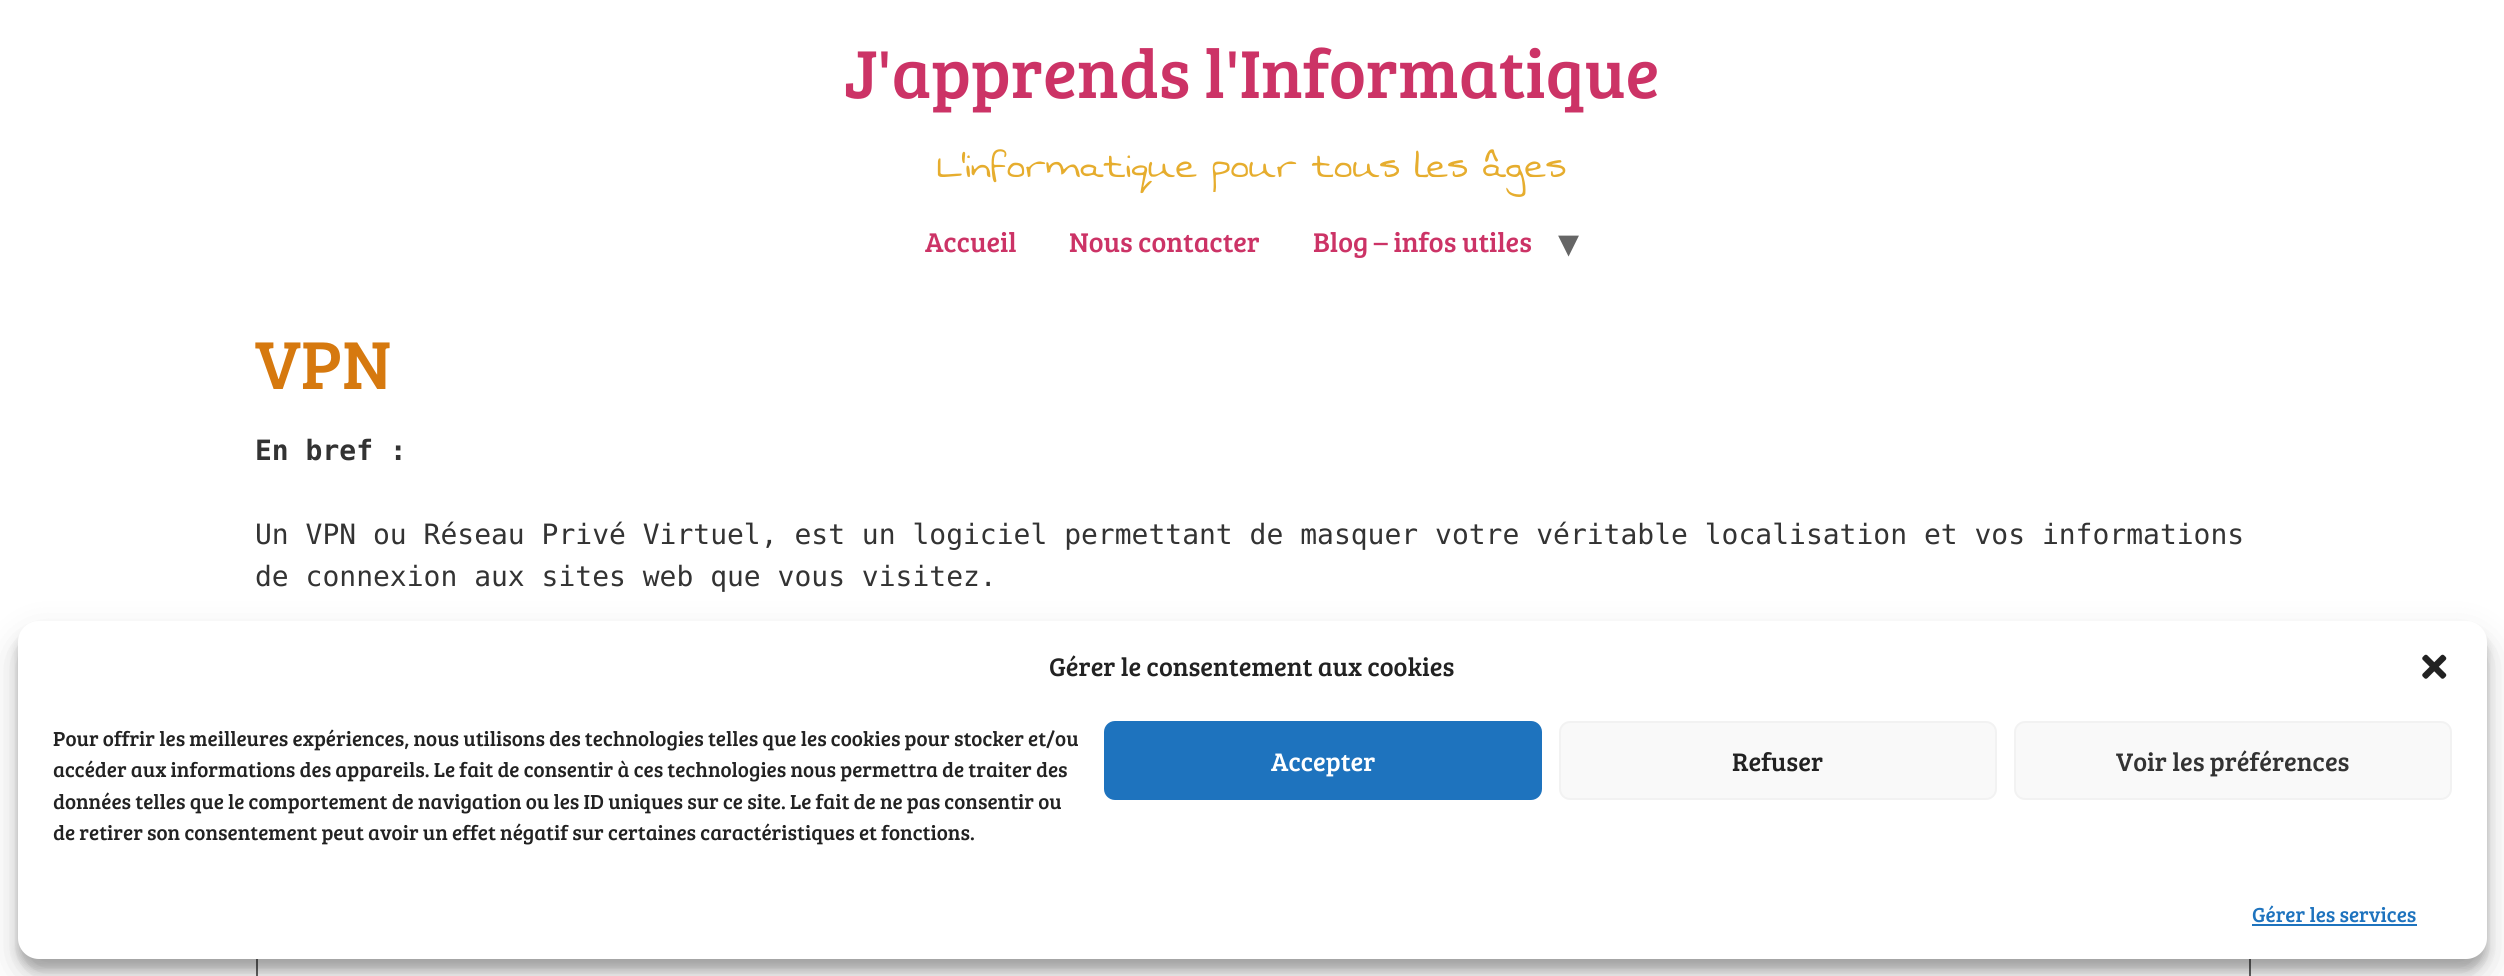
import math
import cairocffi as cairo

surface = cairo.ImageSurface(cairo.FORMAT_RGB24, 2504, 976)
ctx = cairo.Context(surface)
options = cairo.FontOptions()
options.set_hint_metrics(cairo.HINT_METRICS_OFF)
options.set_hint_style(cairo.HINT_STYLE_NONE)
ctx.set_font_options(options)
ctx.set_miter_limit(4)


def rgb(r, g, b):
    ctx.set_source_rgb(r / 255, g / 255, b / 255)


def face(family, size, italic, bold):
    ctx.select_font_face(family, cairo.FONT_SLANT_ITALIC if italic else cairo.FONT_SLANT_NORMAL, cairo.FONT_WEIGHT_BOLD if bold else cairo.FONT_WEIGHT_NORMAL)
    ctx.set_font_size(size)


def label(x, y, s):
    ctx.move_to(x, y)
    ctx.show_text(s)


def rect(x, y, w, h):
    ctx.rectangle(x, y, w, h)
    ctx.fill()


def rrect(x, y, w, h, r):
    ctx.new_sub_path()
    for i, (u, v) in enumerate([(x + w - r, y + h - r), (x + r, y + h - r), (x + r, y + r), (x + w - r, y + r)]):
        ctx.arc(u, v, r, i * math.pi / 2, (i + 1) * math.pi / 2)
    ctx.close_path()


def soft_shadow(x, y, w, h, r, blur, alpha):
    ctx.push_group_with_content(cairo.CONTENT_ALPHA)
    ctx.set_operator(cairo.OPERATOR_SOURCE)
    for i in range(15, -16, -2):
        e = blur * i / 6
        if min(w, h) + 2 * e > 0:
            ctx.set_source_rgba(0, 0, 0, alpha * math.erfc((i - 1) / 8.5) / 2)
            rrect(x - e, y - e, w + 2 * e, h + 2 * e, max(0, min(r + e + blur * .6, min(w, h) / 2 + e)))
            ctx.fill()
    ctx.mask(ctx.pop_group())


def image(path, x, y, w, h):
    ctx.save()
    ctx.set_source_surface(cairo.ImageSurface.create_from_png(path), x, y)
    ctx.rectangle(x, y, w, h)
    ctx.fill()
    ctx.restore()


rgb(255, 255, 255)
ctx.paint()
face('Bree Serif', 70, 0, 0)
rgb(204, 51, 102)
label(844, 98, 'J\'apprends l\'Informatique')
face('Swanky and Moo Moo', 45.5, 0, 0)
rgb(230, 173, 46)
label(937, 177, 'L\'informatique pour tous les âges')
face('Bree Serif', 28, 0, 0)
rgb(204, 51, 102)
label(925, 252, 'Accueil')
label(1069, 252, 'Nous contacter')
label(1313, 252, 'Blog – infos utiles')
face('DejaVu Sans', 42, 0, 0)
rgb(102, 102, 102)
label(1558, 257, '▾')
face('Bree Serif', 70, 0, 0)
rgb(214, 121, 15)
label(255, 389, 'VPN')
face('DejaVu Sans Mono', 28, 0, 1)
rgb(51, 51, 51)
label(255, 460, 'En bref :')
face('DejaVu Sans Mono', 28, 0, 0)
label(255, 544, 'Un VPN ou Réseau Privé Virtuel, est un logiciel permettant de masquer votre véritable localisation et vos informations')
label(255, 586, 'de connexion aux sites web que vous visitez.')
ctx.rectangle(257, 832, 1993, 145)
rgb(102, 102, 102)
ctx.stroke()
rgb(0, 0, 0)
soft_shadow(18, 632, 2469, 338, 21, 5, 0.23)
soft_shadow(18, 639, 2469, 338, 21, 17.5, 0.19)
rgb(255, 255, 255)
rrect(18, 621, 2469, 338, 21)
ctx.fill()
face('Bree Serif', 26.25, 0, 0)
rgb(34, 34, 34)
label(1049, 676, 'Gérer le consentement aux cookies')
image('image0.png', 2422, 654, 25, 25)
face('Bree Serif', 21, 0, 0)
label(53, 746, 'Pour offrir les meilleures expériences, nous utilisons des technologies telles que les cookies pour stocker et/ou')
label(53, 777, 'accéder aux informations des appareils. Le fait de consentir à ces technologies nous permettra de traiter des')
label(53, 809, 'données telles que le comportement de navigation ou les ID uniques sur ce site. Le fait de ne pas consentir ou')
label(53, 840, 'de retirer son consentement peut avoir un effet négatif sur certaines caractéristiques et fonctions.')
rgb(30, 115, 190)
rrect(1105, 722, 436, 77, 10)
ctx.fill_preserve()
ctx.stroke()
face('Bree Serif', 26.25, 0, 0)
rgb(255, 255, 255)
label(1271, 771, 'Accepter')
rgb(249, 249, 249)
rrect(1560, 722, 436, 77, 10)
ctx.fill_preserve()
rgb(242, 242, 242)
ctx.stroke()
rgb(34, 34, 34)
label(1732, 771, 'Refuser')
rgb(249, 249, 249)
rrect(2015, 722, 436, 77, 10)
ctx.fill_preserve()
rgb(242, 242, 242)
ctx.stroke()
rgb(51, 51, 51)
label(2116, 771, 'Voir les préférences')
face('Bree Serif', 21, 0, 0)
rgb(30, 115, 190)
label(2252, 922, 'Gérer les services')
rect(2252, 924, 165, 2)
surface.write_to_png('render.png')
